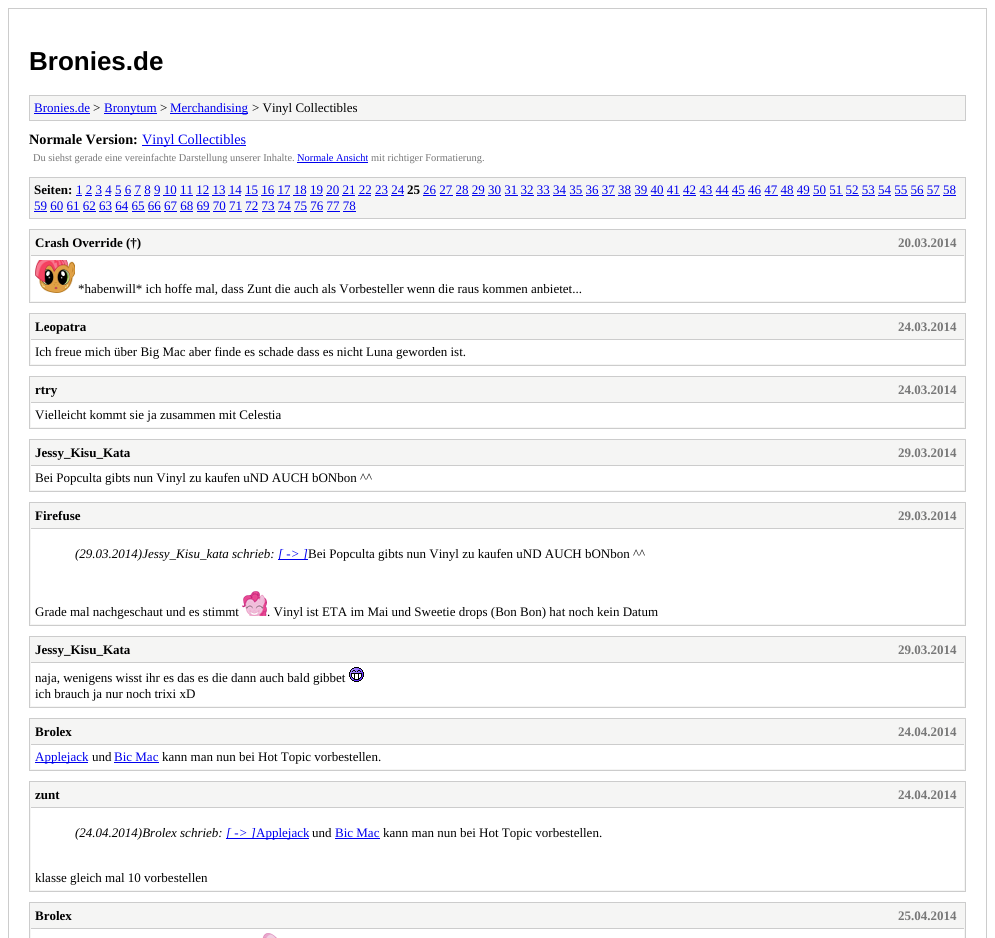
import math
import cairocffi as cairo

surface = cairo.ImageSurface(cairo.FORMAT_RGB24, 995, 938)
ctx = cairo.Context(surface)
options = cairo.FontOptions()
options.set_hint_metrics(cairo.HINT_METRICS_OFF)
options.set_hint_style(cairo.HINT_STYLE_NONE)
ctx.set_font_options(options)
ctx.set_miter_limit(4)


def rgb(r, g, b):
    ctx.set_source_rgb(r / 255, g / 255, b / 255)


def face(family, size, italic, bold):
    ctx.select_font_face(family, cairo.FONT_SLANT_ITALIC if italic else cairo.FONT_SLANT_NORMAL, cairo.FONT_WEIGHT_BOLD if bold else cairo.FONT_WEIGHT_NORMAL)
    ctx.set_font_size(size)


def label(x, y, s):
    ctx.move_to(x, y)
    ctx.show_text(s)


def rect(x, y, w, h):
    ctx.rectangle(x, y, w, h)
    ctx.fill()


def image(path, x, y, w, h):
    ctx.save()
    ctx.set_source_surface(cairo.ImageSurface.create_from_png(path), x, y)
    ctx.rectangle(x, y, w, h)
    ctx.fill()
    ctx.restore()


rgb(255, 255, 255)
ctx.paint()
ctx.rectangle(8.5, 8.5, 978, 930)
rgb(204, 204, 204)
ctx.set_line_width(1)
ctx.stroke()
face('Liberation Sans', 26, 0, 1)
rgb(0, 0, 0)
label(29, 70, 'Bronies.de')
rgb(245, 245, 244)
ctx.rectangle(29.5, 95.5, 936, 25)
ctx.fill_preserve()
rgb(204, 204, 204)
ctx.stroke()
face('Liberation Serif', 13, 0, 0)
rgb(0, 0, 238)
label(34, 112, 'Bronies.de')
rect(34, 113, 56, 1)
rgb(0, 0, 0)
label(93, 112, '>')
rgb(0, 0, 238)
rect(104, 113, 53, 1)
label(104, 112, 'Bronytum')
rgb(0, 0, 0)
label(160, 112, '>')
rgb(0, 0, 238)
rect(170, 113, 78, 1)
label(170, 112, 'Merchandising')
rgb(0, 0, 0)
label(252, 112, '> Vinyl Collectibles')
face('Liberation Serif', 14.25, 0, 1)
label(29, 144, 'Normale Version:')
rgb(0, 0, 238)
rect(142, 145, 104, 1)
face('Liberation Serif', 14.25, 0, 0)
label(142, 144, 'Vinyl Collectibles')
face('Liberation Serif', 10.4, 0, 0)
rgb(119, 119, 119)
label(33, 161, 'Du siehst gerade eine vereinfachte Darstellung unserer Inhalte.')
rgb(0, 0, 238)
label(297, 161, 'Normale Ansicht')
rect(297, 162, 71, 1)
rgb(119, 119, 119)
label(371, 161, 'mit richtiger Formatierung.')
rgb(245, 245, 244)
ctx.rectangle(29.5, 177.5, 936, 41)
ctx.fill_preserve()
rgb(204, 204, 204)
ctx.stroke()
face('Liberation Serif', 13, 0, 1)
rgb(0, 0, 0)
label(34, 194, 'Seiten:')
face('Liberation Serif', 13, 0, 0)
rgb(0, 0, 238)
label(76, 194, '1 2 3 4 5 6 7 8 9 10 11 12 13 14 15 16 17 18 19 20 21 22 23 24')
rect(76, 195, 6, 1)
face('Liberation Serif', 13, 0, 1)
rgb(0, 0, 0)
label(407, 194, '25')
face('Liberation Serif', 13, 0, 0)
rgb(0, 0, 238)
label(423, 194, '26 27 28 29 30 31 32 33 34 35 36 37 38 39 40 41 42 43 44 45 46 47 48 49 50 51 52 53 54 55 56 57 58')
rect(423, 195, 13, 1)
rect(85, 195, 7, 1)
rect(95, 195, 7, 1)
rect(105, 195, 6, 1)
rect(115, 195, 6, 1)
rect(124, 195, 7, 1)
rect(134, 195, 7, 1)
rect(144, 195, 6, 1)
rect(154, 195, 6, 1)
rect(163, 195, 13, 1)
rect(180, 195, 13, 1)
rect(196, 195, 13, 1)
rect(212, 195, 13, 1)
rect(228, 195, 13, 1)
rect(245, 195, 13, 1)
rect(261, 195, 13, 1)
rect(277, 195, 13, 1)
rect(293, 195, 13, 1)
rect(310, 195, 13, 1)
rect(326, 195, 13, 1)
rect(342, 195, 13, 1)
rect(358, 195, 13, 1)
rect(375, 195, 13, 1)
rect(391, 195, 13, 1)
rect(440, 195, 13, 1)
rect(456, 195, 13, 1)
rect(472, 195, 13, 1)
rect(488, 195, 13, 1)
rect(505, 195, 13, 1)
rect(521, 195, 13, 1)
rect(537, 195, 13, 1)
rect(553, 195, 13, 1)
rect(570, 195, 13, 1)
rect(586, 195, 13, 1)
rect(602, 195, 13, 1)
rect(618, 195, 13, 1)
rect(635, 195, 13, 1)
rect(651, 195, 13, 1)
rect(667, 195, 13, 1)
rect(683, 195, 13, 1)
rect(700, 195, 13, 1)
rect(716, 195, 13, 1)
rect(732, 195, 13, 1)
rect(748, 195, 13, 1)
rect(765, 195, 13, 1)
rect(781, 195, 13, 1)
rect(797, 195, 13, 1)
rect(813, 195, 13, 1)
rect(830, 195, 13, 1)
rect(846, 195, 13, 1)
rect(862, 195, 13, 1)
rect(878, 195, 13, 1)
rect(895, 195, 13, 1)
rect(911, 195, 13, 1)
rect(927, 195, 13, 1)
rect(943, 195, 13, 1)
label(34, 210, '59 60 61 62 63 64 65 66 67 68 69 70 71 72 73 74 75 76 77 78')
rect(34, 211, 13, 1)
rect(50, 211, 13, 1)
rect(67, 211, 13, 1)
rect(83, 211, 13, 1)
rect(99, 211, 13, 1)
rect(115, 211, 13, 1)
rect(132, 211, 13, 1)
rect(148, 211, 13, 1)
rect(164, 211, 13, 1)
rect(180, 211, 13, 1)
rect(197, 211, 13, 1)
rect(213, 211, 13, 1)
rect(229, 211, 13, 1)
rect(245, 211, 13, 1)
rect(262, 211, 13, 1)
rect(278, 211, 13, 1)
rect(294, 211, 13, 1)
rect(310, 211, 13, 1)
rect(327, 211, 13, 1)
rect(343, 211, 13, 1)
rgb(245, 245, 244)
ctx.rectangle(29.5, 229.5, 936, 73)
ctx.fill_preserve()
rgb(204, 204, 204)
ctx.stroke()
rect(31, 255, 933, 1)
face('Liberation Serif', 13, 0, 1)
rgb(0, 0, 0)
label(35, 247, 'Crash Override (†)')
rgb(119, 119, 119)
label(898, 247, '20.03.2014')
rgb(255, 255, 255)
rect(31, 256, 933, 45)
image('image0.png', 35, 260, 40, 33)
face('Liberation Serif', 13, 0, 0)
rgb(0, 0, 0)
label(78, 293, '*habenwill* ich hoffe mal, dass Zunt die auch als Vorbesteller wenn die raus kommen anbietet...')
rgb(245, 245, 244)
ctx.rectangle(29.5, 313.5, 936, 52)
ctx.fill_preserve()
rgb(204, 204, 204)
ctx.stroke()
rect(31, 339, 933, 1)
face('Liberation Serif', 13, 0, 1)
rgb(0, 0, 0)
label(35, 331, 'Leopatra')
rgb(119, 119, 119)
label(898, 331, '24.03.2014')
rgb(255, 255, 255)
rect(31, 340, 933, 24)
face('Liberation Serif', 13, 0, 0)
rgb(0, 0, 0)
label(35, 356, 'Ich freue mich über Big Mac aber finde es schade dass es nicht Luna geworden ist.')
rgb(245, 245, 244)
ctx.rectangle(29.5, 376.5, 936, 52)
ctx.fill_preserve()
rgb(204, 204, 204)
ctx.stroke()
rect(31, 402, 933, 1)
face('Liberation Serif', 13, 0, 1)
rgb(0, 0, 0)
label(35, 394, 'rtry')
rgb(119, 119, 119)
label(898, 394, '24.03.2014')
rgb(255, 255, 255)
rect(31, 403, 933, 24)
face('Liberation Serif', 13, 0, 0)
rgb(0, 0, 0)
label(35, 419, 'Vielleicht kommt sie ja zusammen mit Celestia')
rgb(245, 245, 244)
ctx.rectangle(29.5, 439.5, 936, 52)
ctx.fill_preserve()
rgb(204, 204, 204)
ctx.stroke()
rect(31, 465, 933, 1)
face('Liberation Serif', 13, 0, 1)
rgb(0, 0, 0)
label(35, 457, 'Jessy_Kisu_Kata')
rgb(119, 119, 119)
label(898, 457, '29.03.2014')
rgb(255, 255, 255)
rect(31, 466, 933, 24)
face('Liberation Serif', 13, 0, 0)
rgb(0, 0, 0)
label(35, 482, 'Bei Popculta gibts nun Vinyl zu kaufen uND AUCH bONbon ^^')
rgb(245, 245, 244)
ctx.rectangle(29.5, 502.5, 936, 123)
ctx.fill_preserve()
rgb(204, 204, 204)
ctx.stroke()
rect(31, 528, 933, 1)
face('Liberation Serif', 13, 0, 1)
rgb(0, 0, 0)
label(35, 520, 'Firefuse')
rgb(119, 119, 119)
label(898, 520, '29.03.2014')
rgb(255, 255, 255)
rect(31, 529, 933, 95)
face('Liberation Serif', 13, 1, 0)
rgb(0, 0, 0)
label(75, 558, '(29.03.2014)Jessy_Kisu_kata schrieb:')
rgb(0, 0, 238)
rect(278, 559, 30, 1)
label(278, 558, '[ -> ]')
face('Liberation Serif', 13, 0, 0)
rgb(0, 0, 0)
label(308, 558, 'Bei Popculta gibts nun Vinyl zu kaufen uND AUCH bONbon ^^')
label(35, 616, 'Grade mal nachgeschaut und es stimmt')
image('image1.png', 242, 591, 25, 25)
label(267, 616, '. Vinyl ist ETA im Mai und Sweetie drops (Bon Bon) hat noch kein Datum')
rgb(245, 245, 244)
ctx.rectangle(29.5, 636.5, 936, 71)
ctx.fill_preserve()
rgb(204, 204, 204)
ctx.stroke()
rect(31, 662, 933, 1)
face('Liberation Serif', 13, 0, 1)
rgb(0, 0, 0)
label(35, 654, 'Jessy_Kisu_Kata')
rgb(119, 119, 119)
label(898, 654, '29.03.2014')
rgb(255, 255, 255)
rect(31, 663, 933, 43)
face('Liberation Serif', 13, 0, 0)
rgb(0, 0, 0)
label(35, 682, 'naja, wenigens wisst ihr es das es die dann auch bald gibbet')
image('image2.png', 349, 667, 15, 15)
label(35, 698, 'ich brauch ja nur noch trixi xD')
rgb(245, 245, 244)
ctx.rectangle(29.5, 718.5, 936, 52)
ctx.fill_preserve()
rgb(204, 204, 204)
ctx.stroke()
rect(31, 744, 933, 1)
face('Liberation Serif', 13, 0, 1)
rgb(0, 0, 0)
label(35, 736, 'Brolex')
rgb(119, 119, 119)
label(898, 736, '24.04.2014')
rgb(255, 255, 255)
rect(31, 745, 933, 24)
rgb(0, 0, 238)
rect(35, 762, 53, 1)
face('Liberation Serif', 13, 0, 0)
label(35, 761, 'Applejack')
rgb(0, 0, 0)
label(92, 761, 'und')
rgb(0, 0, 238)
label(114, 761, 'Bic Mac')
rect(114, 762, 45, 1)
rgb(0, 0, 0)
label(162, 761, 'kann man nun bei Hot Topic vorbestellen.')
rgb(245, 245, 244)
ctx.rectangle(29.5, 781.5, 936, 110)
ctx.fill_preserve()
rgb(204, 204, 204)
ctx.stroke()
rect(31, 807, 933, 1)
face('Liberation Serif', 13, 0, 1)
rgb(0, 0, 0)
label(35, 799, 'zunt')
rgb(119, 119, 119)
label(898, 799, '24.04.2014')
rgb(255, 255, 255)
rect(31, 808, 933, 82)
face('Liberation Serif', 13, 1, 0)
rgb(0, 0, 0)
label(75, 837, '(24.04.2014)Brolex schrieb:')
rgb(0, 0, 238)
rect(226, 838, 83, 1)
label(226, 837, '[ -> ]')
face('Liberation Serif', 13, 0, 0)
label(256, 837, 'Applejack')
rgb(0, 0, 0)
label(312, 837, 'und')
rgb(0, 0, 238)
label(335, 837, 'Bic Mac')
rect(335, 838, 45, 1)
rgb(0, 0, 0)
label(383, 837, 'kann man nun bei Hot Topic vorbestellen.')
label(35, 882, 'klasse gleich mal 10 vorbestellen')
rgb(245, 245, 244)
ctx.rectangle(29.5, 902.5, 936, 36)
ctx.fill_preserve()
rgb(204, 204, 204)
ctx.stroke()
rect(31, 928, 933, 1)
face('Liberation Serif', 13, 0, 1)
rgb(0, 0, 0)
label(35, 920, 'Brolex')
rgb(119, 119, 119)
label(898, 920, '25.04.2014')
rgb(255, 255, 255)
rect(31, 929, 933, 9)
image('image3.png', 262, 933, 15, 5)
surface.write_to_png('render.png')
